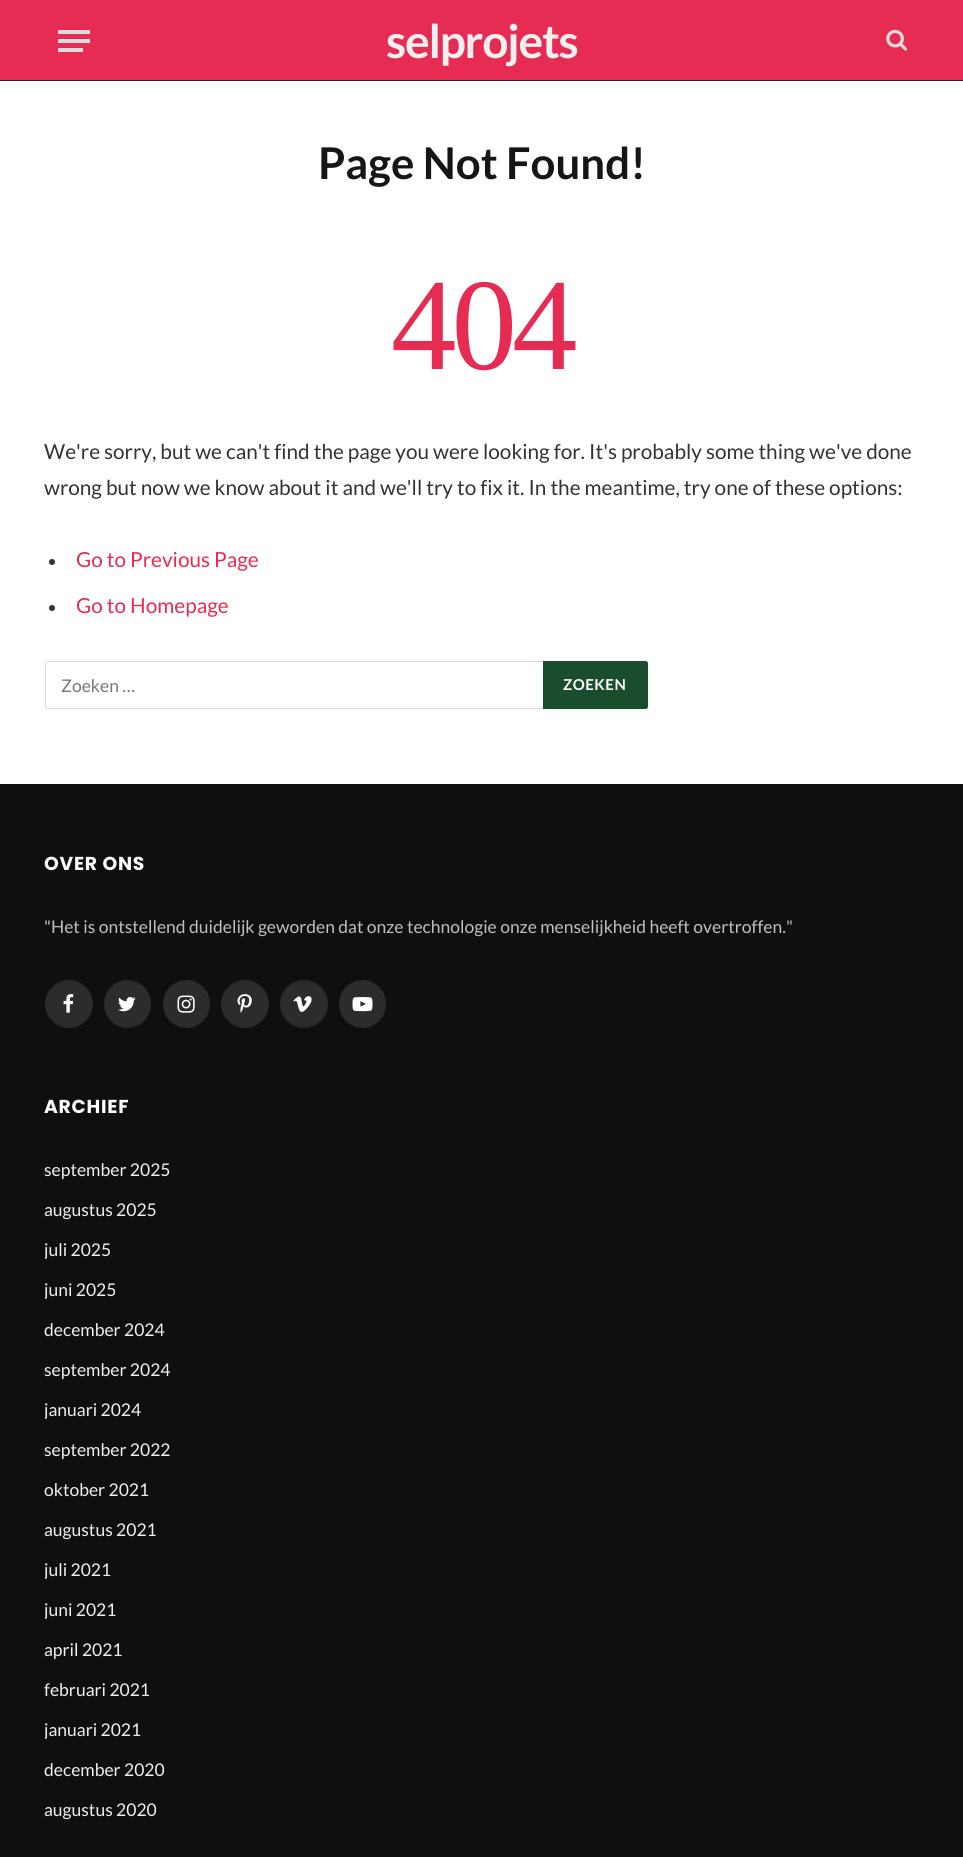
import math
import cairocffi as cairo

surface = cairo.ImageSurface(cairo.FORMAT_RGB24, 963, 1857)
ctx = cairo.Context(surface)
options = cairo.FontOptions()
options.set_hint_metrics(cairo.HINT_METRICS_OFF)
options.set_hint_style(cairo.HINT_STYLE_NONE)
ctx.set_font_options(options)
ctx.set_miter_limit(4)


def rgb(r, g, b):
    ctx.set_source_rgb(r / 255, g / 255, b / 255)


def face(family, size, italic, bold):
    ctx.select_font_face(family, cairo.FONT_SLANT_ITALIC if italic else cairo.FONT_SLANT_NORMAL, cairo.FONT_WEIGHT_BOLD if bold else cairo.FONT_WEIGHT_NORMAL)
    ctx.set_font_size(size)


def label(x, y, s):
    ctx.move_to(x, y)
    ctx.show_text(s)


def tracked(x, y, s, letter, word):
    ctx.move_to(x, y)
    for ch in s:
        ctx.show_text(ch)
        ctx.rel_move_to(letter + word * (ch == ' '), 0)


def rect(x, y, w, h):
    ctx.rectangle(x, y, w, h)
    ctx.fill()


def rrect(x, y, w, h, r):
    ctx.new_sub_path()
    for i, (u, v) in enumerate([(x + w - r, y + h - r), (x + r, y + h - r), (x + r, y + r), (x + w - r, y + r)]):
        ctx.arc(u, v, r, i * math.pi / 2, (i + 1) * math.pi / 2)
    ctx.close_path()


def soft_shadow(x, y, w, h, r, blur, alpha):
    ctx.push_group_with_content(cairo.CONTENT_ALPHA)
    ctx.set_operator(cairo.OPERATOR_SOURCE)
    for i in range(15, -16, -2):
        e = blur * i / 6
        if min(w, h) + 2 * e > 0:
            ctx.set_source_rgba(0, 0, 0, alpha * math.erfc((i - 1) / 8.5) / 2)
            rrect(x - e, y - e, w + 2 * e, h + 2 * e, max(0, min(r + e + blur * .6, min(w, h) / 2 + e)))
            ctx.fill()
    ctx.mask(ctx.pop_group())


def image(path, x, y, w, h):
    ctx.save()
    ctx.set_source_surface(cairo.ImageSurface.create_from_png(path), x, y)
    ctx.rectangle(x, y, w, h)
    ctx.fill()
    ctx.restore()


rgb(255, 255, 255)
ctx.paint()
rgb(230, 44, 83)
rect(0, 0, 963, 80)
rgb(34, 34, 34)
rect(0, 80, 963, 1)
rgb(221, 221, 221)
rect(58, 48, 25, 4)
rect(58, 30, 32, 4)
rect(58, 39, 32, 4)
face('Lato', 46.25, 0, 1)
rgb(240, 240, 240)
tracked(386, 58, 'selprojets', -1.25, 0)
image('image0.png', 886, 29, 22, 22)
face('Lato', 43.75, 0, 1)
rgb(22, 22, 22)
label(318, 179, 'Page Not Found!')
face('Liberation Serif', 131, 0, 0)
rgb(230, 44, 83)
tracked(391, 369, '404', -5, 0)
face('Lato', 20.75, 0, 0)
rgb(51, 51, 51)
label(44, 459, 'We\'re sorry, but we can\'t find the page you were looking for. It\'s probably some thing we\'ve done')
label(44, 495, 'wrong but now we know about it and we\'ll try to fix it. In the meantime, try one of these options:')
ctx.new_path()
ctx.arc(52, 562, 3, 0, 2 * math.pi)
ctx.fill()
rgb(230, 44, 83)
label(76, 567, 'Go to Previous Page')
rgb(51, 51, 51)
ctx.new_path()
ctx.arc(52, 608, 3, 0, 2 * math.pi)
ctx.fill()
rgb(230, 44, 83)
label(76, 613, 'Go to Homepage')
rgb(0, 0, 0)
soft_shadow(50, 669, 490, 37, 0, 4.5, 0.1)
rgb(255, 255, 255)
rrect(45.5, 661.5, 499, 47, 2)
ctx.fill_preserve()
rgb(221, 221, 221)
ctx.set_line_width(1)
ctx.stroke()
face('Lato', 17.5, 0, 0)
rgb(119, 119, 119)
label(61, 692, 'Zoeken …')
rgb(0, 0, 0)
soft_shadow(548, 669, 95, 37, 0, 4.5, 0.16)
rgb(26, 77, 46)
ctx.new_path()
ctx.move_to(543, 661)
ctx.line_to(645.5, 661)
ctx.curve_to(647, 661, 648, 662, 648, 663.5)
ctx.line_to(648, 706.5)
ctx.curve_to(648, 708, 647, 709, 645.5, 709)
ctx.line_to(543, 709)
ctx.close_path()
ctx.fill()
face('Lato', 15, 0, 1)
rgb(255, 255, 255)
tracked(563, 690, 'ZOEKEN', 0.5, 0)
rgb(15, 15, 17)
rect(0, 784, 963, 1073)
face('Poppins', 18.75, 0, 1)
rgb(255, 255, 255)
tracked(44, 870, 'OVER ONS', 0.75, 0)
face('Lato', 17.5, 0, 0)
rgb(192, 192, 192)
label(44, 933, '"Het is ontstellend duidelijk geworden dat onze technologie onze menselijkheid heeft overtroffen."')
rgb(44, 44, 46)
ctx.new_path()
ctx.arc(69, 1004, 24, 0, 2 * math.pi)
ctx.fill()
ctx.arc(69, 1004, 23.5, 0, 2 * math.pi)
ctx.set_source_rgba(0, 0, 0, 0.09)
ctx.stroke()
image('image1.png', 63, 994, 11, 19)
rgb(44, 44, 46)
rrect(104, 980, 47, 48, 23.5)
ctx.fill()
rrect(104.5, 980.5, 46, 47, 23)
ctx.set_source_rgba(0, 0, 0, 0.09)
ctx.stroke()
image('image2.png', 118, 997, 18, 15)
rgb(44, 44, 46)
rrect(163, 980, 47, 48, 23.5)
ctx.fill()
rrect(163.5, 980.5, 46, 47, 23)
ctx.set_source_rgba(0, 0, 0, 0.09)
ctx.stroke()
image('image3.png', 177, 995, 18, 18)
rgb(44, 44, 46)
ctx.arc(245, 1004, 24, 0, 2 * math.pi)
ctx.fill()
ctx.arc(245, 1004, 23.5, 0, 2 * math.pi)
ctx.set_source_rgba(0, 0, 0, 0.09)
ctx.stroke()
image('image4.png', 237, 994, 15, 19)
rgb(44, 44, 46)
ctx.arc(304, 1004, 24, 0, 2 * math.pi)
ctx.fill()
ctx.arc(304, 1004, 23.5, 0, 2 * math.pi)
ctx.set_source_rgba(0, 0, 0, 0.09)
ctx.stroke()
image('image5.png', 293, 996, 19, 16)
rgb(44, 44, 46)
rrect(339, 980, 47, 48, 23.5)
ctx.fill()
rrect(339.5, 980.5, 46, 47, 23)
ctx.set_source_rgba(0, 0, 0, 0.09)
ctx.stroke()
image('image6.png', 352, 997, 21, 15)
face('Poppins', 18.75, 0, 1)
rgb(255, 255, 255)
tracked(44, 1113, 'ARCHIEF', 0.75, 0)
face('Lato', 17.5, 0, 0)
rgb(240, 240, 240)
label(44, 1176, 'september 2025')
label(44, 1216, 'augustus 2025')
ctx.save()
ctx.rectangle(45, 1230, 875, 39)
ctx.clip()
label(44, 1256, 'juli 2025')
ctx.restore()
ctx.save()
ctx.rectangle(45, 1270, 875, 39)
ctx.clip()
label(44, 1296, 'juni 2025')
ctx.restore()
label(44, 1336, 'december 2024')
label(44, 1376, 'september 2024')
ctx.save()
ctx.rectangle(45, 1390, 875, 39)
ctx.clip()
label(44, 1416, 'januari 2024')
ctx.restore()
label(44, 1456, 'september 2022')
label(44, 1496, 'oktober 2021')
label(44, 1536, 'augustus 2021')
ctx.save()
ctx.rectangle(45, 1550, 875, 39)
ctx.clip()
label(44, 1576, 'juli 2021')
ctx.restore()
ctx.save()
ctx.rectangle(45, 1590, 875, 39)
ctx.clip()
label(44, 1616, 'juni 2021')
ctx.restore()
label(44, 1656, 'april 2021')
label(44, 1696, 'februari 2021')
ctx.save()
ctx.rectangle(45, 1710, 875, 39)
ctx.clip()
label(44, 1736, 'januari 2021')
ctx.restore()
label(44, 1776, 'december 2020')
label(44, 1816, 'augustus 2020')
surface.write_to_png('render.png')
